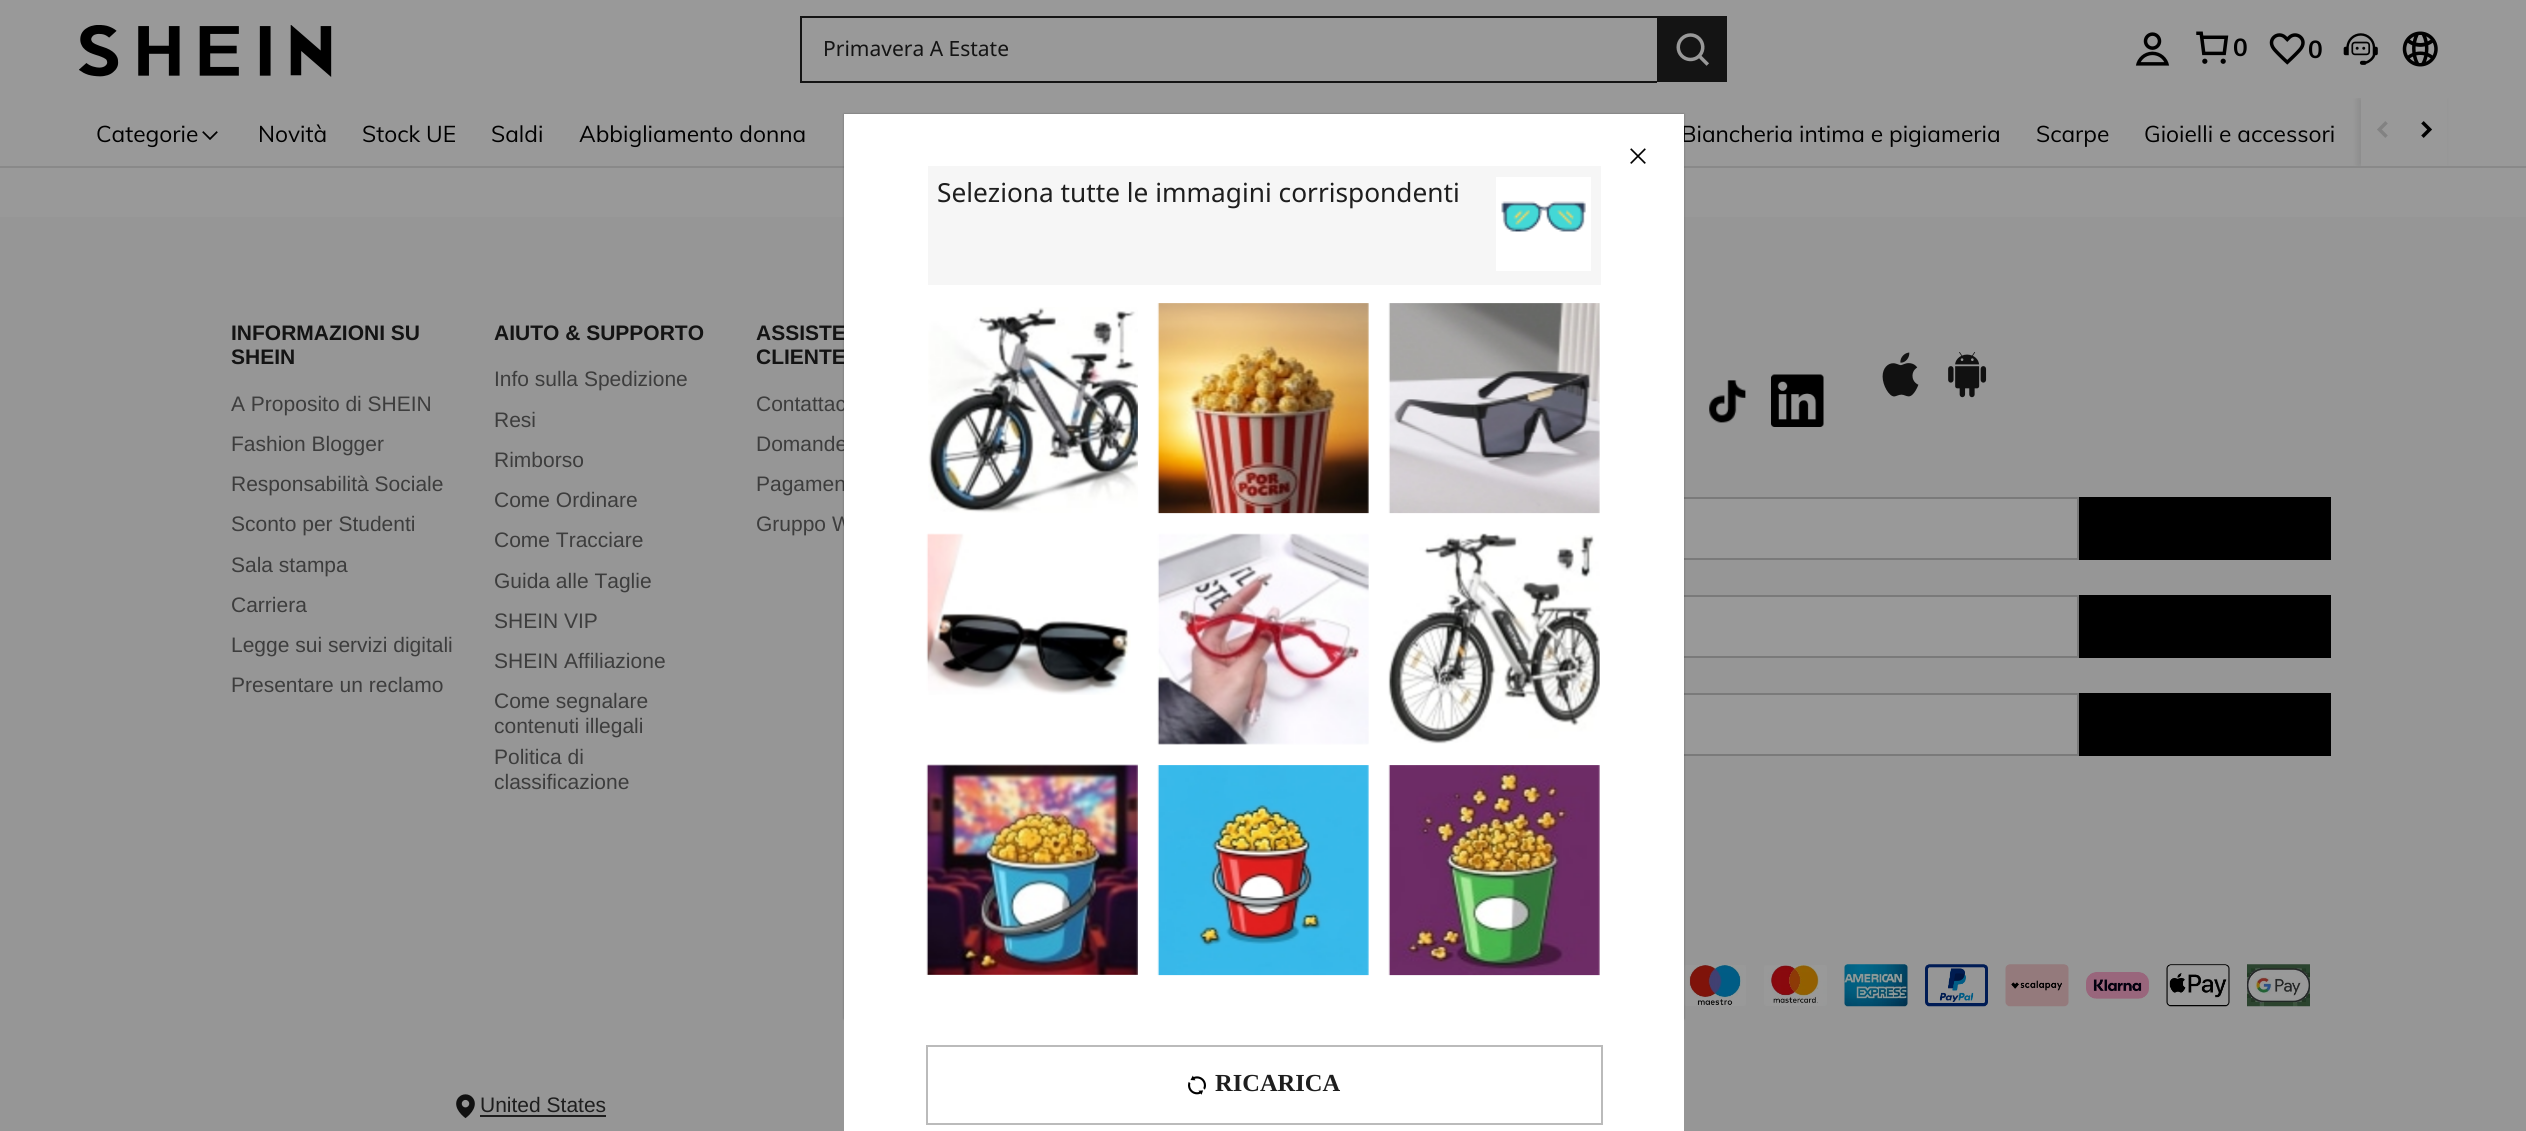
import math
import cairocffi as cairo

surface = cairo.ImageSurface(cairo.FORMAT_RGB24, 2526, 1131)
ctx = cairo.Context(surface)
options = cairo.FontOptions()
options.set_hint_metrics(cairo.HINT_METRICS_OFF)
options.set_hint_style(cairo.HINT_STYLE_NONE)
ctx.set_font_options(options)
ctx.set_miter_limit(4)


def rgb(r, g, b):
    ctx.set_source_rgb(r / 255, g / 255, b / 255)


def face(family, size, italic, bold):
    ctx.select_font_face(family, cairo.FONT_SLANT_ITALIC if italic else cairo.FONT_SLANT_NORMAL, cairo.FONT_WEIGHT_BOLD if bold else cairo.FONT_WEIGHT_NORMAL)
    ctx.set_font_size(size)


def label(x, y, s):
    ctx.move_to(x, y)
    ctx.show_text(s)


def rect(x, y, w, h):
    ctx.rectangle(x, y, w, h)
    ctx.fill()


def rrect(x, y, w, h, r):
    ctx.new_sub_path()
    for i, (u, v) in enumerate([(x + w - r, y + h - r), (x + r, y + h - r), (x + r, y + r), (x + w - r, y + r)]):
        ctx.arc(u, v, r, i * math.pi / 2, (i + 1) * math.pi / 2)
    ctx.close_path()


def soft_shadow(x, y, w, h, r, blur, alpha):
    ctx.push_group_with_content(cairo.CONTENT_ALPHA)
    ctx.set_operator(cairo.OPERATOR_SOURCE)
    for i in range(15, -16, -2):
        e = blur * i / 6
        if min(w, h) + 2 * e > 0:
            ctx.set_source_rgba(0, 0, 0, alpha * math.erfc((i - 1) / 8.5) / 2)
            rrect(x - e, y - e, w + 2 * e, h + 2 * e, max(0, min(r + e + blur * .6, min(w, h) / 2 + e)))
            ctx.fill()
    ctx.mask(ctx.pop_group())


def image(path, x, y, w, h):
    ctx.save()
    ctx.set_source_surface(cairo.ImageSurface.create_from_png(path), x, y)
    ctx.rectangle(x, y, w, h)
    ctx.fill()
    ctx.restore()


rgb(153, 153, 153)
ctx.paint()
image('image0.png', 79, 25, 253, 52)
rgb(20, 20, 20)
rect(800, 16, 857, 2)
rect(800, 81, 857, 2)
rect(800, 16, 2, 66)
face('Noto Sans', 21, 0, 0)
label(823, 56, 'Primavera A Estate')
rect(1657, 16, 70, 66)
image('image1.png', 1676, 33, 33, 33)
image('image2.png', 2135, 32, 35, 34)
image('image3.png', 2196, 31, 33, 33)
face('Muli', 24.5, 0, 1)
rgb(0, 0, 0)
label(2233, 56, '0')
image('image4.png', 2269, 33, 36, 32)
label(2308, 58, '0')
image('image5.png', 2343, 33, 35, 32)
image('image6.png', 2402, 31, 36, 36)
rgb(137, 137, 137)
rect(0, 166, 2526, 2)
face('Muli', 22.75, 0, 0)
rgb(0, 0, 0)
label(96, 142, 'Categorie')
image('image7.png', 202, 131, 16, 9)
label(258, 142, 'Novità')
label(362, 142, 'Stock UE')
label(491, 142, 'Saldi')
label(579, 142, 'Abbigliamento donna')
label(1681, 142, 'Biancheria intima e pigiameria')
label(2036, 142, 'Scarpe')
label(2144, 142, 'Gioielli e accessori')
ctx.save()
ctx.rectangle(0, 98, 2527, 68)
ctx.clip()
rgb(0, 0, 0)
soft_shadow(2357, 98, 88, 68, 0, 2.5, 0.08)
ctx.restore()
rgb(153, 153, 153)
rect(2361, 98, 86, 68)
image('image8.png', 2377, 121, 11, 17)
image('image9.png', 2421, 121, 11, 17)
rgb(150, 150, 150)
rect(0, 217, 2526, 914)
face('Liberation Sans', 21, 0, 1)
rgb(20, 20, 20)
label(231, 340, 'INFORMAZIONI SU')
label(231, 364, 'SHEIN')
face('Liberation Sans', 21, 0, 0)
rgb(61, 61, 61)
label(231, 411, 'A Proposito di SHEIN')
label(231, 451, 'Fashion Blogger')
label(231, 491, 'Responsabilità Sociale')
label(231, 531, 'Sconto per Studenti')
label(231, 572, 'Sala stampa')
label(231, 612, 'Carriera')
label(231, 652, 'Legge sui servizi digitali')
label(231, 692, 'Presentare un reclamo')
face('Liberation Sans', 21, 0, 1)
rgb(20, 20, 20)
label(494, 340, 'AIUTO & SUPPORTO')
face('Liberation Sans', 21, 0, 0)
rgb(61, 61, 61)
label(494, 386, 'Info sulla Spedizione')
label(494, 427, 'Resi')
label(494, 467, 'Rimborso')
label(494, 507, 'Come Ordinare')
label(494, 547, 'Come Tracciare')
label(494, 588, 'Guida alle Taglie')
label(494, 628, 'SHEIN VIP')
label(494, 668, 'SHEIN Affiliazione')
label(494, 708, 'Come segnalare')
label(494, 733, 'contenuti illegali')
label(494, 764, 'Politica di')
label(494, 789, 'classificazione')
face('Liberation Sans', 21, 0, 1)
rgb(20, 20, 20)
label(756, 340, 'ASSISTE')
label(756, 364, 'CLIENTE')
face('Liberation Sans', 21, 0, 0)
rgb(61, 61, 61)
label(756, 411, 'Contattac')
label(756, 451, 'Domande')
label(756, 491, 'Pagamen')
label(756, 531, 'Gruppo W')
image('image10.png', 1709, 380, 37, 43)
image('image11.png', 1771, 374, 53, 53)
image('image12.png', 1882, 352, 37, 45)
image('image13.png', 1948, 352, 39, 46)
rgb(153, 153, 153)
rect(1684, 499, 393, 59)
ctx.rectangle(1282, 498, 796, 61)
rgb(122, 122, 122)
ctx.stroke()
rgb(0, 0, 0)
rect(2079, 497, 252, 63)
rgb(153, 153, 153)
rect(1684, 597, 393, 59)
ctx.rectangle(1422, 596, 656, 61)
rgb(122, 122, 122)
ctx.stroke()
rgb(0, 0, 0)
rect(2079, 595, 252, 63)
rgb(153, 153, 153)
rect(1684, 695, 393, 59)
ctx.rectangle(1422, 694, 656, 61)
rgb(122, 122, 122)
ctx.stroke()
rgb(0, 0, 0)
rect(2079, 693, 252, 63)
image('image14.png', 1684, 965, 62, 41)
image('image15.png', 1764, 965, 63, 41)
image('image16.png', 1844, 964, 64, 43)
image('image17.png', 1925, 964, 63, 43)
image('image18.png', 2005, 964, 64, 43)
image('image19.png', 2086, 972, 63, 27)
image('image20.png', 2166, 964, 64, 43)
image('image21.png', 2247, 964, 63, 43)
image('image22.png', 456, 1094, 19, 25)
rgb(30, 30, 30)
label(480, 1112, 'United States')
rect(480, 1115, 126, 2)
rgb(0, 0, 0)
soft_shadow(844, 114, 840, 905, 0, 1, 0.3)
rgb(255, 255, 255)
rect(844, 114, 840, 1017)
image('image23.png', 1630, 148, 16, 16)
rgb(246, 246, 246)
rect(928, 166, 673, 119)
face('Noto Sans', 26.25, 0, 0)
rgb(30, 30, 30)
label(937, 202, 'Seleziona tutte le immagini corrispondenti')
rgb(255, 255, 255)
rect(1496, 177, 95, 94)
image('image24.png', 1501, 201, 85, 31)
image('image25.png', 928, 307, 210, 206)
image('image26.png', 1157, 303, 212, 211)
image('image27.png', 1388, 303, 212, 211)
image('image28.png', 926, 533, 205, 162)
image('image29.png', 1157, 533, 212, 212)
image('image30.png', 1388, 533, 212, 211)
image('image31.png', 926, 764, 212, 211)
image('image32.png', 1157, 765, 212, 211)
image('image33.png', 1388, 765, 212, 211)
ctx.rectangle(927, 1046, 675, 78)
rgb(187, 187, 187)
ctx.stroke()
image('image34.png', 1188, 1075, 18, 20)
face('Liberation Serif', 24.5, 0, 1)
rgb(30, 30, 30)
label(1215, 1091, 'RICARICA')
surface.write_to_png('render.png')
